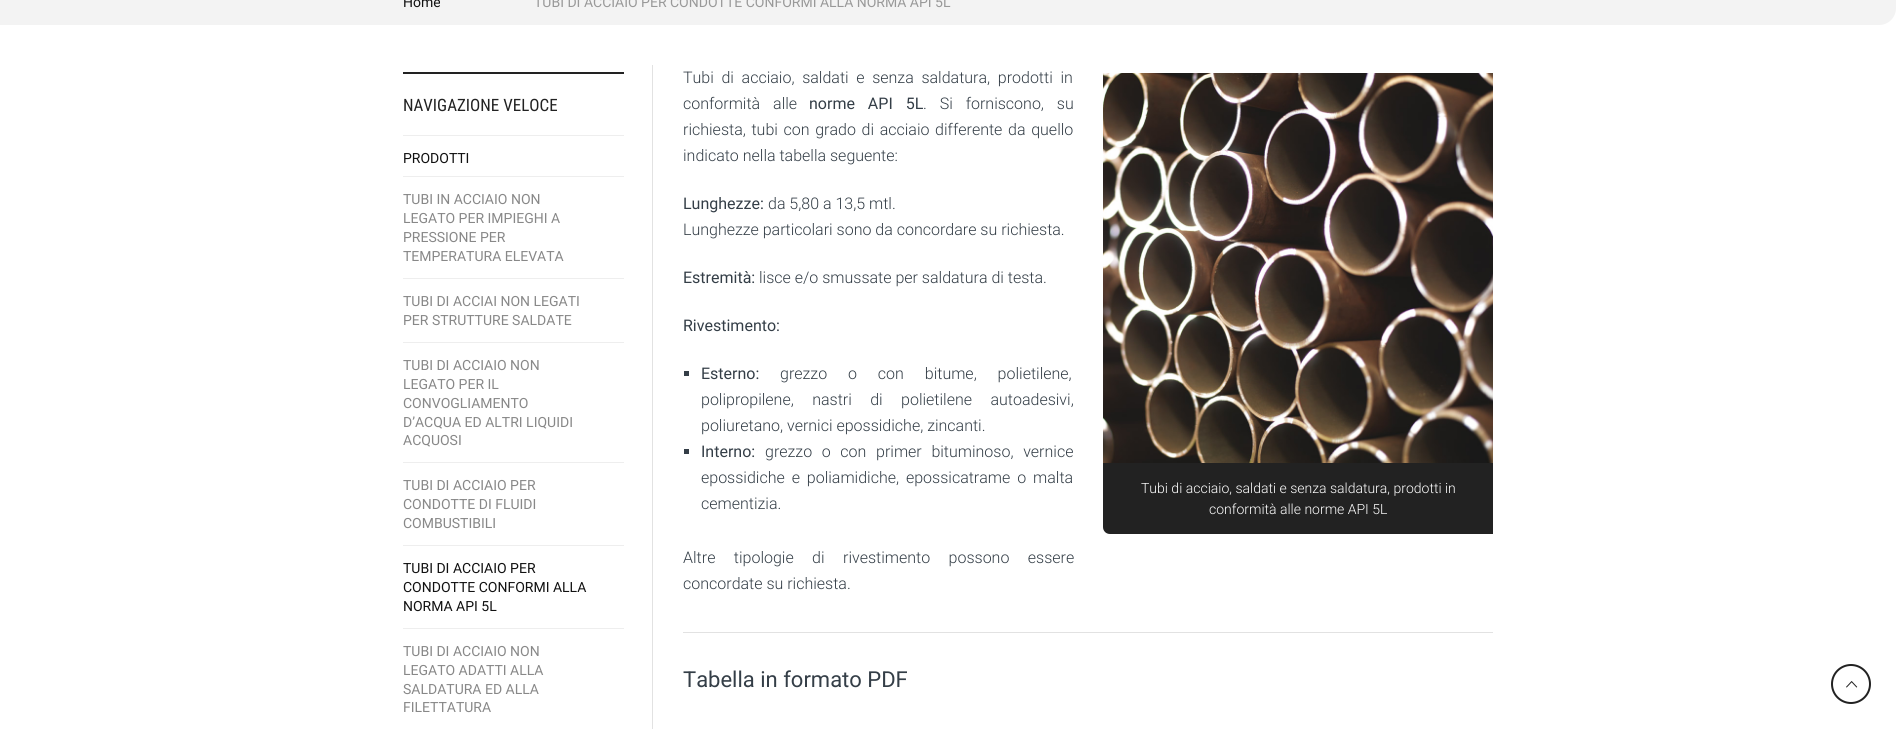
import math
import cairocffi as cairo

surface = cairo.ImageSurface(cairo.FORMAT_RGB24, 1896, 729)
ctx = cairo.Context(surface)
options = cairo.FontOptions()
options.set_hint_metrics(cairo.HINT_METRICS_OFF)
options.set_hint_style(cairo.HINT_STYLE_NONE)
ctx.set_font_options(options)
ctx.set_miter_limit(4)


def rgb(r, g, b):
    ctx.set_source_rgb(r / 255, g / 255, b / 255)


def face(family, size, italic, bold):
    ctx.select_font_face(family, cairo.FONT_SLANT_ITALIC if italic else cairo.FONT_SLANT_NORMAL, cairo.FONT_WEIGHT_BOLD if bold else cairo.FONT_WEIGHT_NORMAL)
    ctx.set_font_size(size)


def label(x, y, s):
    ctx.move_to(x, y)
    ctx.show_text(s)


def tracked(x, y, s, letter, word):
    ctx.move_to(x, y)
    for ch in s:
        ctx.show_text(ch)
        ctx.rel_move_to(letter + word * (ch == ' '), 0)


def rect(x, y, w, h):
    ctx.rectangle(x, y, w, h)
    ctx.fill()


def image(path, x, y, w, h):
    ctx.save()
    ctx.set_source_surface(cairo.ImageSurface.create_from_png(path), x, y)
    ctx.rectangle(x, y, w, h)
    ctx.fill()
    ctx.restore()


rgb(255, 255, 255)
ctx.paint()
rgb(243, 243, 243)
ctx.new_path()
ctx.move_to(0, -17)
ctx.line_to(1896, -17)
ctx.line_to(1896, 8)
ctx.curve_to(1896, 17.5, 1888.5, 25, 1879, 25)
ctx.line_to(0, 25)
ctx.close_path()
ctx.fill()
face('Roboto', 14, 0, 0)
rgb(17, 17, 17)
label(403, 7, 'Home')
rgb(153, 153, 153)
label(534, 7, 'TUBI DI ACCIAIO PER CONDOTTE CONFORMI ALLA NORMA API 5L')
rgb(226, 226, 226)
rect(652, 65, 1, 664)
rgb(34, 34, 34)
rect(403, 72, 221, 2)
face('Roboto Condensed', 17, 0, 0)
label(403, 111, 'NAVIGAZIONE VELOCE')
rgb(238, 238, 238)
rect(403, 135, 221, 1)
face('Roboto', 14, 0, 0)
rgb(17, 17, 17)
label(403, 163, 'PRODOTTI')
rgb(238, 238, 238)
rect(403, 176, 221, 1)
rgb(136, 136, 136)
label(403, 204, 'TUBI IN ACCIAIO NON')
label(403, 223, 'LEGATO PER IMPIEGHI A')
label(403, 242, 'PRESSIONE PER')
label(403, 261, 'TEMPERATURA ELEVATA')
rgb(238, 238, 238)
rect(403, 278, 221, 1)
rgb(136, 136, 136)
label(403, 306, 'TUBI DI ACCIAI NON LEGATI')
label(403, 325, 'PER STRUTTURE SALDATE')
rgb(238, 238, 238)
rect(403, 342, 221, 1)
rgb(136, 136, 136)
label(403, 370, 'TUBI DI ACCIAIO NON')
label(403, 389, 'LEGATO PER IL')
label(403, 408, 'CONVOGLIAMENTO')
label(403, 427, 'D’ACQUA ED ALTRI LIQUIDI')
label(403, 445, 'ACQUOSI')
rgb(238, 238, 238)
rect(403, 462, 221, 1)
rgb(136, 136, 136)
label(403, 490, 'TUBI DI ACCIAIO PER')
label(403, 509, 'CONDOTTE DI FLUIDI')
label(403, 528, 'COMBUSTIBILI')
rgb(238, 238, 238)
rect(403, 545, 221, 1)
rgb(17, 17, 17)
label(403, 573, 'TUBI DI ACCIAIO PER')
label(403, 592, 'CONDOTTE CONFORMI ALLA')
label(403, 611, 'NORMA API 5L')
rgb(238, 238, 238)
rect(403, 628, 221, 1)
rgb(136, 136, 136)
label(403, 656, 'TUBI DI ACCIAIO NON')
label(403, 675, 'LEGATO ADATTI ALLA')
label(403, 694, 'SALDATURA ED ALLA')
label(403, 712, 'FILETTATURA')
face('Roboto Light', 16, 0, 0)
rgb(52, 62, 71)
tracked(683, 83, 'Tubi di acciaio, saldati e senza saldatura, prodotti in', 0, 3.75)
tracked(683, 109, 'conformità alle', 0, 9)
face('Roboto', 16, 0, 0)
tracked(809, 109, 'norme API 5L', 0, 9)
face('Roboto Light', 16, 0, 0)
tracked(923, 109, '. Si forniscono, su', 0, 9)
tracked(683, 135, 'richiesta, tubi con grado di acciaio differente da quello', 0, 1.75)
label(683, 161, 'indicato nella tabella seguente:')
face('Roboto', 16, 0, 0)
label(683, 209, 'Lunghezze:')
face('Roboto Light', 16, 0, 0)
label(768, 209, 'da 5,80 a 13,5 mtl.')
label(683, 235, 'Lunghezze particolari sono da concordare su richiesta.')
face('Roboto', 16, 0, 0)
label(683, 283, 'Estremità:')
face('Roboto Light', 16, 0, 0)
label(759, 283, 'lisce e/o smussate per saldatura di testa.')
face('Roboto', 16, 0, 0)
label(683, 331, 'Rivestimento:')
rect(684, 371, 5, 5)
label(701, 379, 'Esterno:')
face('Roboto Light', 16, 0, 0)
tracked(780, 379, 'grezzo o con bitume, polietilene,', 0, 17)
tracked(701, 405, 'polipropilene, nastri di polietilene autoadesivi,', 0, 14.5)
label(701, 431, 'poliuretano, vernici epossidiche, zincanti.')
rect(684, 449, 5, 5)
face('Roboto', 16, 0, 0)
label(701, 457, 'Interno:')
face('Roboto Light', 16, 0, 0)
tracked(765, 457, 'grezzo o con primer bituminoso, vernice', 0, 5.75)
tracked(701, 483, 'epossidiche e poliamidiche, epossicatrame o malta', 0, 3)
label(701, 509, 'cementizia.')
tracked(683, 563, 'Altre tipologie di rivestimento possono essere', 0, 14.5)
label(683, 589, 'concordate su richiesta.')
image('image0.png', 1103, 73, 390, 390)
rgb(34, 34, 34)
ctx.new_path()
ctx.move_to(1103, 463)
ctx.line_to(1493, 463)
ctx.line_to(1493, 534)
ctx.line_to(1110, 534)
ctx.curve_to(1106, 534, 1103, 531, 1103, 527)
ctx.close_path()
ctx.fill()
face('Roboto Light', 14, 0, 0)
rgb(255, 255, 255)
label(1141, 493, 'Tubi di acciaio, saldati e senza saldatura, prodotti in')
label(1209, 514, 'conformità alle norme API 5L')
rgb(226, 226, 226)
rect(683, 632, 810, 1)
face('Roboto', 22, 0, 0)
rgb(52, 62, 71)
label(683, 687, 'Tabella in formato PDF')
ctx.new_path()
ctx.arc(1851, 684, 19, 0, 2 * math.pi)
rgb(34, 34, 34)
ctx.stroke()
image('image1.png', 1846, 681, 12, 7)
surface.write_to_png('render.png')
